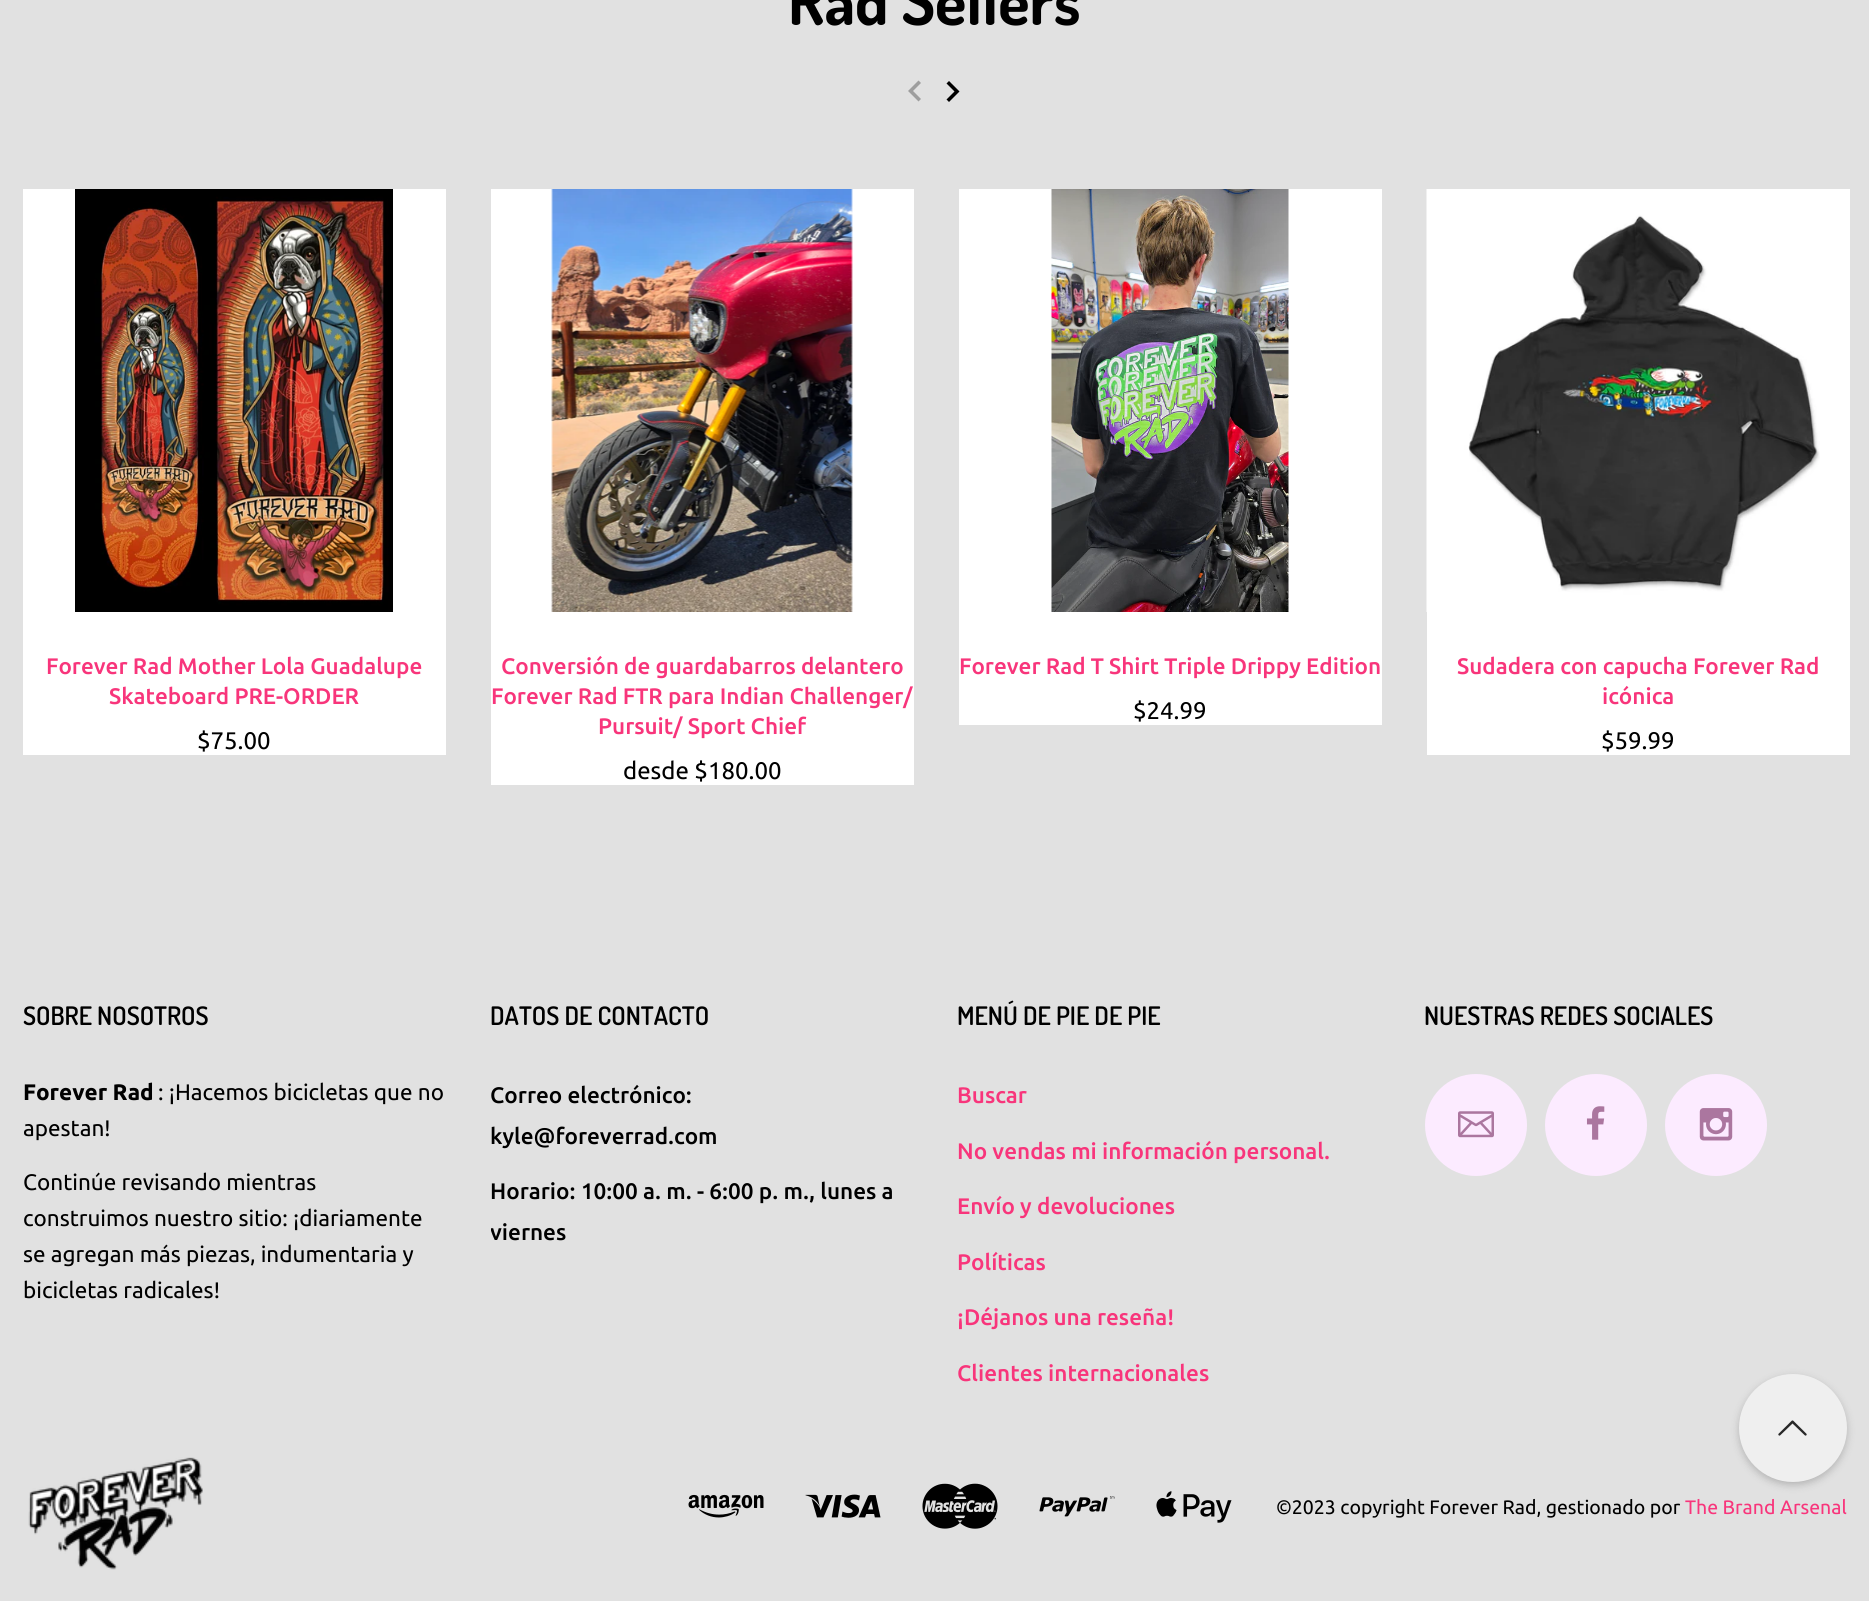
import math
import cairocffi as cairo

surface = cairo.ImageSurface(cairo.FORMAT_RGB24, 1869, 1601)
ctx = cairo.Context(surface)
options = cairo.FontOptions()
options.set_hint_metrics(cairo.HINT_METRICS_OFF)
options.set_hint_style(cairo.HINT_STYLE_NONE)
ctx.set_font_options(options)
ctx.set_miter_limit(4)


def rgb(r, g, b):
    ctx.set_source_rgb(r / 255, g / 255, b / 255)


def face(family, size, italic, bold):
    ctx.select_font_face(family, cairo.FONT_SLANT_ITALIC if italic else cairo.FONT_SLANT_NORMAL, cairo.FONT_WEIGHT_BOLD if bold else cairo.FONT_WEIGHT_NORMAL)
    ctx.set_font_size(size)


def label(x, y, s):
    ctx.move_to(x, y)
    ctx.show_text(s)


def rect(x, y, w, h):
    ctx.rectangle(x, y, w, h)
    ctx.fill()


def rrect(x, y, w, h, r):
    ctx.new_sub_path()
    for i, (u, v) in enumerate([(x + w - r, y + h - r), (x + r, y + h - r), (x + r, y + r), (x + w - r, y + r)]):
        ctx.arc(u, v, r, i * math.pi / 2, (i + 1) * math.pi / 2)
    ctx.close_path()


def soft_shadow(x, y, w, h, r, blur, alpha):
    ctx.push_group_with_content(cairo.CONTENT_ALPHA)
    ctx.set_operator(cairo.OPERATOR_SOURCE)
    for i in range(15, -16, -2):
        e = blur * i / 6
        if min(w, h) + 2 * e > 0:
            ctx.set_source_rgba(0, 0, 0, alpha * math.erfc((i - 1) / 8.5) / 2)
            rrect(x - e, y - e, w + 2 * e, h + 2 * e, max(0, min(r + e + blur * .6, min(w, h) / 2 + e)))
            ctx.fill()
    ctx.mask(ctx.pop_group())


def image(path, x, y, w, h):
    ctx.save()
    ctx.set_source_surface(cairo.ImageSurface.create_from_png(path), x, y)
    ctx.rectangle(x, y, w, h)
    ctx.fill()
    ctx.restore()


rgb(225, 225, 225)
ctx.paint()
face('Dosis', 64.5, 0, 1)
rgb(0, 0, 0)
label(788, 25, 'Rad Sellers')
rgb(158, 158, 158)
ctx.new_path()
ctx.move_to(921, 99)
ctx.line_to(918.5, 101.5)
ctx.line_to(908, 91)
ctx.line_to(918.5, 80.5)
ctx.line_to(921, 83)
ctx.line_to(913, 91)
ctx.close_path()
ctx.fill()
rgb(0, 0, 0)
ctx.new_path()
ctx.move_to(946.5, 99.5)
ctx.line_to(954.5, 91.5)
ctx.line_to(946.5, 83.5)
ctx.line_to(949, 81)
ctx.line_to(959.5, 91.5)
ctx.line_to(949, 102)
ctx.close_path()
ctx.fill()
rgb(255, 255, 255)
rect(23, 189, 423, 566)
image('image0.png', 75, 189, 318, 423)
face('Ubuntu Medium', 22.5, 0, 0)
rgb(248, 53, 123)
label(46, 674, 'Forever Rad Mother Lola Guadalupe')
label(109, 704, 'Skateboard PRE-ORDER')
face('Ubuntu', 24, 0, 0)
rgb(0, 0, 0)
label(197, 749, '$75.00')
rgb(255, 255, 255)
rect(491, 189, 423, 596)
image('image1.png', 551, 189, 302, 423)
face('Ubuntu Medium', 22.5, 0, 0)
rgb(248, 53, 123)
label(501, 674, 'Conversión de guardabarros delantero')
label(491, 704, 'Forever Rad FTR para Indian Challenger/')
label(598, 734, 'Pursuit/ Sport Chief')
face('Ubuntu', 24, 0, 0)
rgb(0, 0, 0)
label(623, 779, 'desde $180.00')
rgb(255, 255, 255)
rect(959, 189, 423, 536)
image('image2.png', 1051, 189, 238, 423)
face('Ubuntu Medium', 22.5, 0, 0)
rgb(248, 53, 123)
label(959, 674, 'Forever Rad T Shirt Triple Drippy Edition')
face('Ubuntu', 24, 0, 0)
rgb(0, 0, 0)
label(1133, 719, '$24.99')
rgb(255, 255, 255)
rect(1427, 189, 423, 566)
image('image3.png', 1426, 189, 394, 423)
face('Ubuntu Medium', 22.5, 0, 0)
rgb(248, 53, 123)
label(1457, 674, 'Sudadera con capucha Forever Rad')
label(1602, 704, 'icónica')
face('Ubuntu', 24, 0, 0)
rgb(0, 0, 0)
label(1601, 749, '$59.99')
face('Dosis SemiBold', 25.5, 0, 0)
label(23, 1025, 'SOBRE NOSOTROS')
face('Ubuntu', 22.5, 0, 1)
label(23, 1100, 'Forever Rad')
face('Ubuntu', 22.5, 0, 0)
label(158, 1100, ': ¡Hacemos bicicletas que no')
label(23, 1136, 'apestan!')
label(23, 1190, 'Continúe revisando mientras')
label(23, 1226, 'construimos nuestro sitio: ¡diariamente')
label(23, 1262, 'se agregan más piezas, indumentaria y')
label(23, 1298, 'bicicletas radicales!')
face('Dosis SemiBold', 25.5, 0, 0)
label(490, 1025, 'DATOS DE CONTACTO')
face('Ubuntu Medium', 22.5, 0, 0)
label(490, 1103, 'Correo electrónico:')
label(490, 1144, 'kyle@foreverrad.com')
label(490, 1199, 'Horario: 10:00 a. m. - 6:00 p. m., lunes a')
ctx.save()
ctx.rectangle(491, 1170, 421, 81)
ctx.clip()
label(490, 1240, 'viernes')
ctx.restore()
face('Dosis SemiBold', 25.5, 0, 0)
label(957, 1025, 'MENÚ DE PIE DE PIE')
face('Ubuntu Medium', 22.5, 0, 0)
rgb(248, 53, 123)
label(957, 1103, 'Buscar')
label(957, 1159, 'No vendas mi información personal.')
label(957, 1214, 'Envío y devoluciones')
label(957, 1270, 'Políticas')
label(957, 1325, '¡Déjanos una reseña!')
label(957, 1381, 'Clientes internacionales')
face('Dosis SemiBold', 25.5, 0, 0)
rgb(0, 0, 0)
label(1424, 1025, 'NUESTRAS REDES SOCIALES')
rgb(252, 235, 255)
ctx.new_path()
ctx.arc(1476, 1125, 51, 0, 2 * math.pi)
ctx.fill()
image('image4.png', 1458, 1111, 36, 27)
ctx.arc(1596, 1125, 51, 0, 2 * math.pi)
ctx.fill()
image('image5.png', 1586, 1106, 19, 34)
ctx.arc(1716, 1125, 51, 0, 2 * math.pi)
ctx.fill()
image('image6.png', 1699, 1108, 34, 33)
image('image7.png', 28, 1457, 175, 113)
image('image8.png', 688, 1494, 76, 24)
image('image9.png', 805, 1494, 76, 24)
image('image10.png', 922, 1483, 76, 46)
image('image11.png', 1039, 1496, 76, 21)
image('image12.png', 1156, 1491, 76, 32)
face('Ubuntu', 19.5, 0, 0)
rgb(0, 0, 0)
label(1276, 1514, '©2023 copyright Forever Rad, gestionado por')
rgb(248, 53, 123)
label(1685, 1514, 'The Brand Arsenal')
rgb(0, 0, 0)
soft_shadow(1739, 1377, 108, 108, 54, 4, 0.2)
rgb(239, 239, 239)
ctx.arc(1793, 1428, 54, 0, 2 * math.pi)
ctx.fill()
image('image13.png', 1778, 1420, 29, 16)
surface.write_to_png('render.png')
